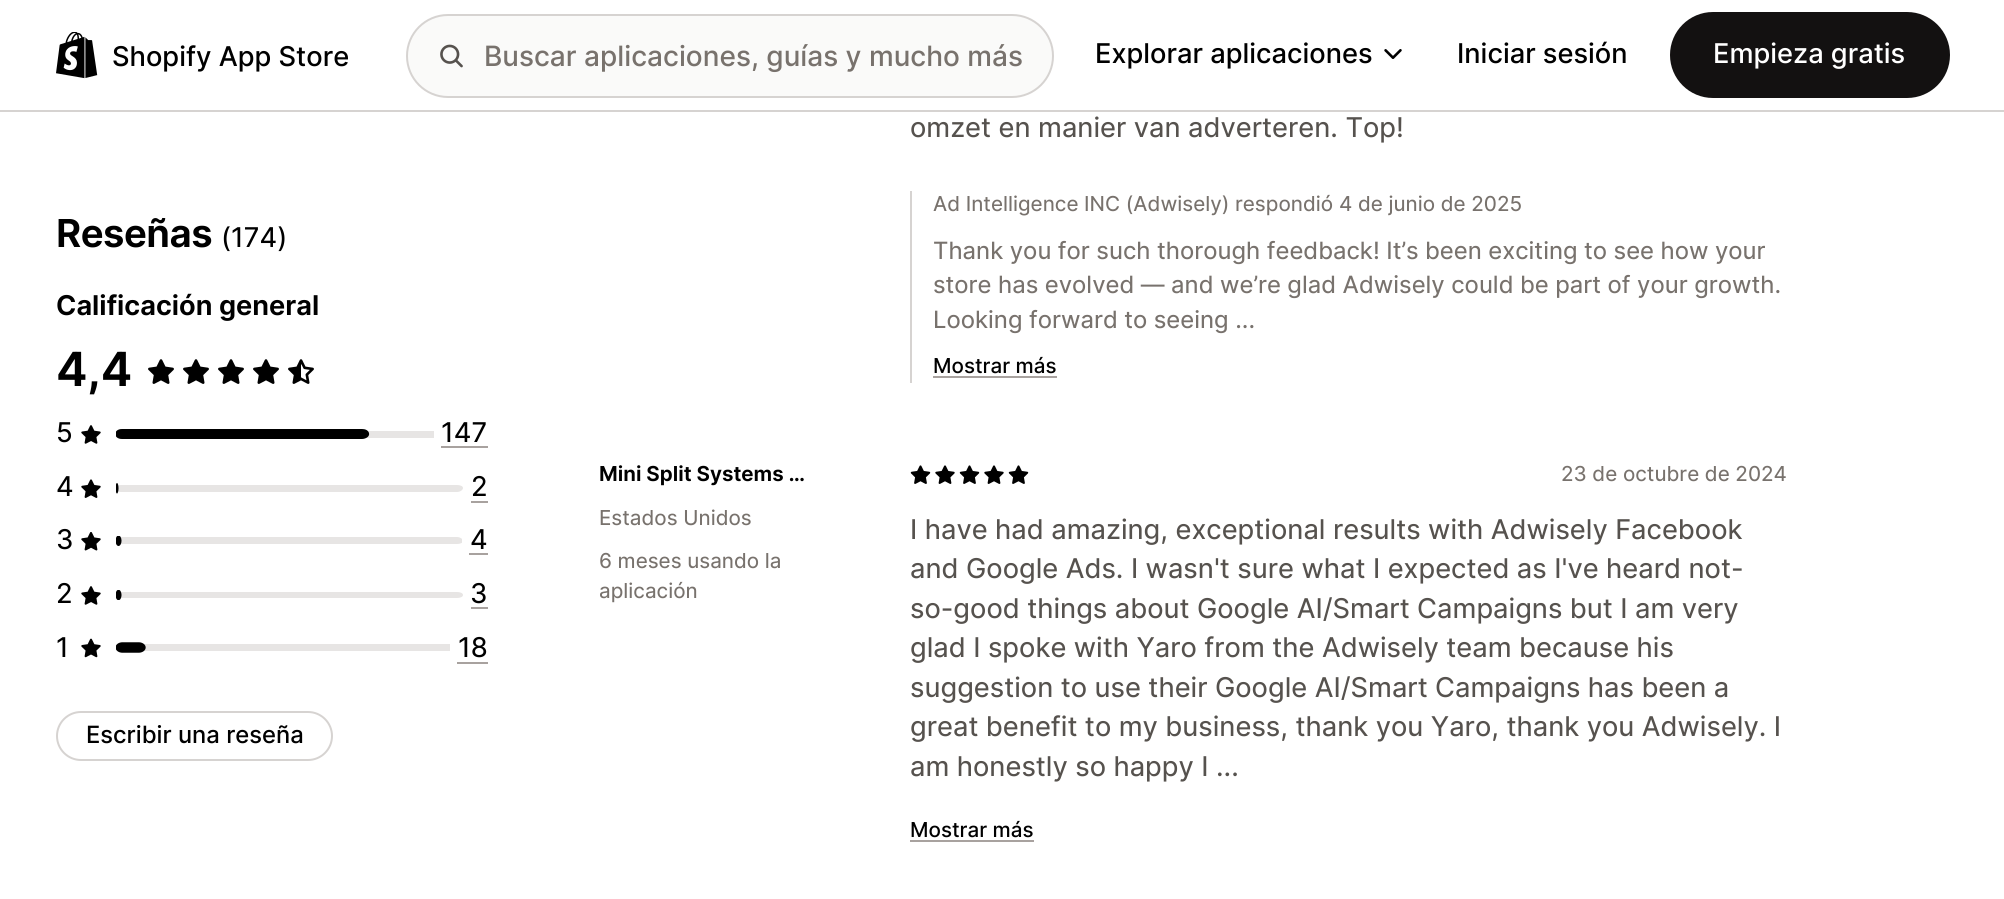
import math
import cairocffi as cairo

surface = cairo.ImageSurface(cairo.FORMAT_RGB24, 2004, 899)
ctx = cairo.Context(surface)
options = cairo.FontOptions()
options.set_hint_metrics(cairo.HINT_METRICS_OFF)
options.set_hint_style(cairo.HINT_STYLE_NONE)
ctx.set_font_options(options)
ctx.set_miter_limit(4)


def rgb(r, g, b):
    ctx.set_source_rgb(r / 255, g / 255, b / 255)


def face(family, size, italic, bold):
    ctx.select_font_face(family, cairo.FONT_SLANT_ITALIC if italic else cairo.FONT_SLANT_NORMAL, cairo.FONT_WEIGHT_BOLD if bold else cairo.FONT_WEIGHT_NORMAL)
    ctx.set_font_size(size)


def label(x, y, s):
    ctx.move_to(x, y)
    ctx.show_text(s)


def tracked(x, y, s, letter, word):
    ctx.move_to(x, y)
    for ch in s:
        ctx.show_text(ch)
        ctx.rel_move_to(letter + word * (ch == ' '), 0)


def rect(x, y, w, h):
    ctx.rectangle(x, y, w, h)
    ctx.fill()


def rrect(x, y, w, h, r):
    ctx.new_sub_path()
    for i, (u, v) in enumerate([(x + w - r, y + h - r), (x + r, y + h - r), (x + r, y + r), (x + w - r, y + r)]):
        ctx.arc(u, v, r, i * math.pi / 2, (i + 1) * math.pi / 2)
    ctx.close_path()


def image(path, x, y, w, h):
    ctx.save()
    ctx.set_source_surface(cairo.ImageSurface.create_from_png(path), x, y)
    ctx.rectangle(x, y, w, h)
    ctx.fill()
    ctx.restore()


rgb(255, 255, 255)
ctx.paint()
rgb(214, 211, 209)
rect(0, 110, 2004, 2)
image('image0.png', 56, 32, 42, 47)
face('Inter Medium', 27.25, 0, 0)
rgb(0, 0, 0)
label(112, 66, 'Shopify App Store')
rgb(250, 250, 249)
rrect(407, 15, 646, 82, 41)
ctx.fill_preserve()
rgb(214, 211, 209)
ctx.stroke()
image('image1.png', 440, 44, 23, 24)
face('Inter Medium', 28, 0, 0)
rgb(120, 114, 109)
label(484, 66, 'Buscar aplicaciones, guías y mucho más')
face('Inter Medium', 27.25, 0, 0)
rgb(0, 0, 0)
label(1095, 63, 'Explorar aplicaciones')
image('image2.png', 1384, 49, 18, 10)
label(1457, 63, 'Iniciar sesión')
rgb(19, 17, 17)
rrect(1670, 12, 280, 86, 43)
ctx.fill()
rgb(255, 255, 255)
label(1713, 63, 'Empieza gratis')
face('Inter SemiBold', 38.5, 0, 0)
rgb(0, 0, 0)
tracked(56, 247, 'Reseñas', -0.5, 0)
face('Inter', 27.25, 0, 0)
label(221, 247, '(174)')
face('Inter SemiBold', 27.25, 0, 0)
label(56, 315, 'Calificación general')
face('Inter SemiBold', 47, 0, 0)
tracked(56, 386, '4,4', -0.5, 0)
image('image3.png', 148, 359, 26, 25)
image('image3.png', 183, 359, 26, 25)
image('image3.png', 218, 359, 26, 25)
image('image3.png', 253, 359, 26, 25)
image('image4.png', 288, 359, 26, 25)
face('Inter', 27.25, 0, 0)
label(56, 442, '5')
image('image5.png', 81, 425, 20, 19)
ctx.save()
ctx.rectangle(116, 431, 358, 7)
ctx.clip()
rgb(231, 229, 228)
ctx.new_path()
ctx.move_to(121, 430)
ctx.line_to(457, 430)
ctx.curve_to(460, 430, 463, 432, 463, 434)
ctx.curve_to(463, 436, 460, 438, 457, 438)
ctx.line_to(121, 438)
ctx.curve_to(118, 438, 116, 436, 116, 434)
ctx.curve_to(116, 432, 118, 430, 121, 430)
ctx.close_path()
ctx.fill()
ctx.restore()
ctx.save()
ctx.rectangle(116, 429, 302, 10)
ctx.clip()
ctx.new_path()
ctx.move_to(122, 429)
ctx.line_to(362, 429)
ctx.curve_to(365, 429, 368, 430, 369, 433)
ctx.curve_to(370, 437, 365, 439, 362, 439)
ctx.line_to(122, 439)
ctx.curve_to(113, 439, 113, 429, 122, 429)
ctx.close_path()
ctx.fill()
ctx.restore()
rgb(255, 255, 255)
rect(434, 431, 29, 7)
rgb(0, 0, 0)
label(441, 442, '147')
rgb(168, 162, 159)
rect(441, 446, 47, 2)
rgb(0, 0, 0)
label(56, 496, '4')
image('image6.png', 81, 479, 20, 19)
rgb(231, 229, 228)
ctx.new_path()
ctx.move_to(121, 485)
ctx.line_to(457, 485)
ctx.curve_to(460, 485, 463, 486, 463, 488)
ctx.curve_to(463, 490, 460, 492, 457, 492)
ctx.line_to(121, 492)
ctx.curve_to(118, 492, 116, 490, 116, 488)
ctx.curve_to(116, 486, 118, 485, 121, 485)
ctx.close_path()
ctx.fill()
image('image7.png', 116, 483, 3, 11)
rgb(0, 0, 0)
label(471, 496, '2')
rgb(168, 162, 159)
rect(471, 501, 17, 2)
rgb(0, 0, 0)
label(56, 549, '3')
image('image8.png', 81, 532, 20, 19)
rgb(231, 229, 228)
ctx.new_path()
ctx.move_to(121, 537)
ctx.line_to(457, 537)
ctx.curve_to(460, 537, 463, 539, 463, 541)
ctx.curve_to(463, 543, 460, 544, 457, 544)
ctx.line_to(121, 544)
ctx.curve_to(118, 544, 116, 543, 116, 541)
ctx.curve_to(116, 539, 118, 537, 121, 537)
ctx.close_path()
ctx.fill()
image('image9.png', 116, 536, 6, 10)
rgb(255, 255, 255)
rect(462, 539, 1, 4)
rgb(0, 0, 0)
label(470, 549, '4')
rgb(168, 162, 159)
rect(469, 553, 19, 2)
rgb(0, 0, 0)
label(56, 603, '2')
image('image5.png', 81, 586, 20, 19)
rgb(231, 229, 228)
ctx.new_path()
ctx.move_to(121, 592)
ctx.line_to(457, 592)
ctx.curve_to(460, 592, 463, 593, 463, 595)
ctx.curve_to(463, 597, 460, 598, 457, 598)
ctx.line_to(121, 598)
ctx.curve_to(118, 598, 116, 597, 116, 595)
ctx.curve_to(116, 593, 118, 592, 121, 592)
ctx.close_path()
ctx.fill()
image('image10.png', 116, 590, 6, 10)
rgb(0, 0, 0)
label(470, 603, '3')
rgb(168, 162, 159)
rect(471, 607, 17, 2)
rgb(0, 0, 0)
label(56, 657, '1')
image('image11.png', 81, 638, 20, 20)
rgb(231, 229, 228)
ctx.new_path()
ctx.move_to(121, 644)
ctx.line_to(457, 644)
ctx.curve_to(460, 644, 463, 646, 463, 648)
ctx.curve_to(463, 649, 460, 651, 457, 651)
ctx.line_to(121, 651)
ctx.curve_to(118, 651, 116, 649, 116, 648)
ctx.curve_to(116, 646, 118, 644, 121, 644)
ctx.close_path()
ctx.fill()
image('image12.png', 116, 642, 30, 11)
rgb(255, 255, 255)
rect(450, 644, 13, 7)
rgb(0, 0, 0)
label(458, 657, '18')
rgb(168, 162, 159)
rect(457, 662, 31, 2)
rrect(57, 712, 275, 48, 24)
rgb(214, 211, 209)
ctx.stroke()
face('Inter Medium', 23.8, 0, 0)
rgb(0, 0, 0)
label(86, 743, 'Escribir una reseña')
face('Inter', 27.25, 0, 0)
rgb(86, 82, 78)
label(910, 137, 'omzet en manier van adverteren. Top!')
rgb(214, 211, 209)
rect(910, 191, 2, 192)
face('Inter', 20.6, 0, 0)
rgb(120, 114, 109)
label(933, 211, 'Ad Intelligence INC (Adwisely) respondió')
label(1339, 211, '4 de junio de 2025')
face('Inter', 23.8, 0, 0)
label(933, 259, 'Thank you for such thorough feedback! It’s been exciting to see how your')
label(933, 293, 'store has evolved — and we’re glad Adwisely could be part of your growth.')
label(933, 328, 'Looking forward to seeing ...')
face('Inter Medium', 20.6, 0, 0)
rgb(0, 0, 0)
label(933, 373, 'Mostrar más')
rgb(168, 162, 159)
rect(933, 376, 124, 2)
face('Inter SemiBold', 20.6, 0, 0)
rgb(0, 0, 0)
label(599, 481, 'Mini Split Systems …')
face('Inter', 20.6, 0, 0)
rgb(120, 114, 109)
label(599, 525, 'Estados Unidos')
label(599, 568, '6 meses usando la')
label(599, 598, 'aplicación')
image('image13.png', 910, 465, 21, 19)
image('image6.png', 935, 465, 20, 19)
image('image13.png', 959, 465, 21, 19)
image('image6.png', 984, 465, 20, 19)
image('image13.png', 1008, 465, 21, 19)
label(1561, 481, '23 de octubre de 2024')
face('Inter', 27.25, 0, 0)
rgb(86, 82, 78)
label(910, 539, 'I have had amazing, exceptional results with Adwisely Facebook')
label(910, 578, 'and Google Ads. I wasn\'t sure what I expected as I\'ve heard not-')
label(910, 618, 'so-good things about Google AI/Smart Campaigns but I am very')
label(910, 657, 'glad I spoke with Yaro from the Adwisely team because his')
label(910, 697, 'suggestion to use their Google AI/Smart Campaigns has been a')
label(910, 736, 'great benefit to my business, thank you Yaro, thank you Adwisely. I')
label(910, 776, 'am honestly so happy I ...')
face('Inter Medium', 20.6, 0, 0)
rgb(0, 0, 0)
label(910, 837, 'Mostrar más')
rgb(168, 162, 159)
rect(910, 840, 124, 2)
surface.write_to_png('render.png')
